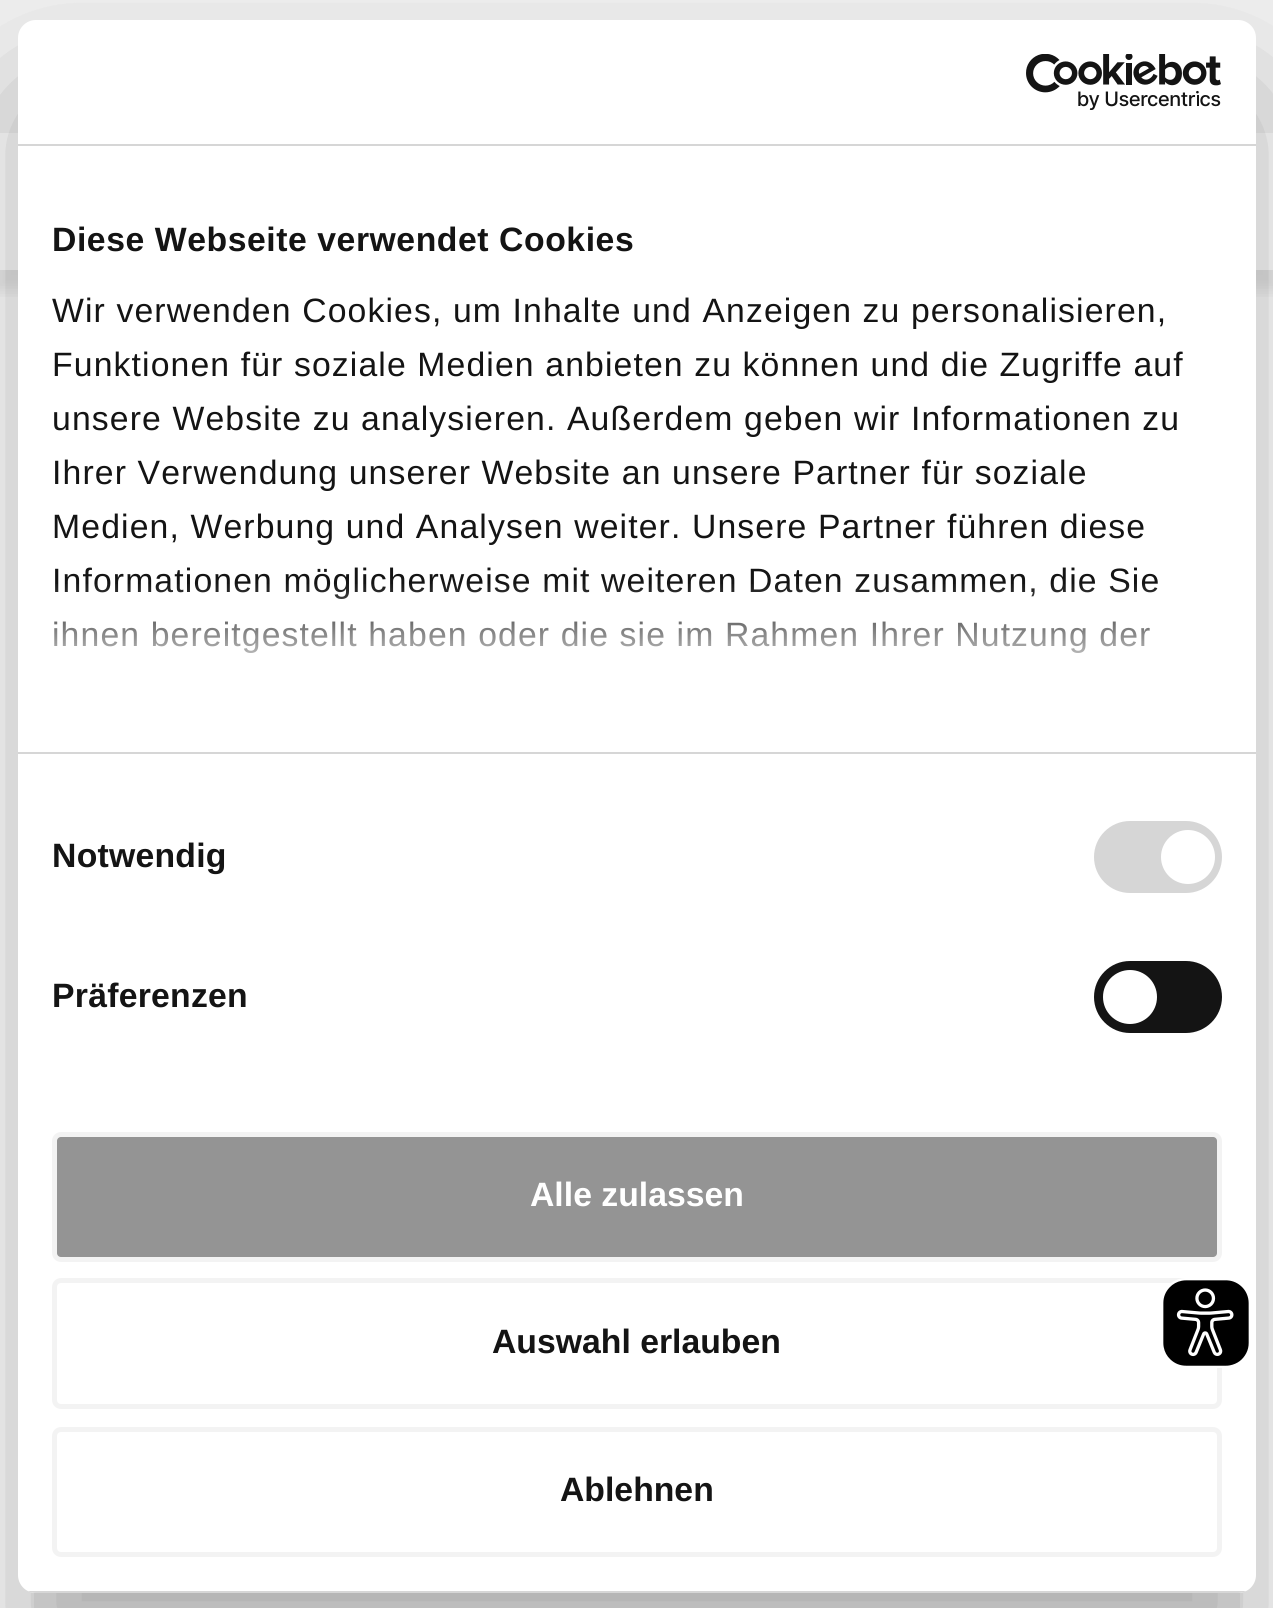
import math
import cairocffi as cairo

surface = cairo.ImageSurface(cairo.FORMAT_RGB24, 1273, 1608)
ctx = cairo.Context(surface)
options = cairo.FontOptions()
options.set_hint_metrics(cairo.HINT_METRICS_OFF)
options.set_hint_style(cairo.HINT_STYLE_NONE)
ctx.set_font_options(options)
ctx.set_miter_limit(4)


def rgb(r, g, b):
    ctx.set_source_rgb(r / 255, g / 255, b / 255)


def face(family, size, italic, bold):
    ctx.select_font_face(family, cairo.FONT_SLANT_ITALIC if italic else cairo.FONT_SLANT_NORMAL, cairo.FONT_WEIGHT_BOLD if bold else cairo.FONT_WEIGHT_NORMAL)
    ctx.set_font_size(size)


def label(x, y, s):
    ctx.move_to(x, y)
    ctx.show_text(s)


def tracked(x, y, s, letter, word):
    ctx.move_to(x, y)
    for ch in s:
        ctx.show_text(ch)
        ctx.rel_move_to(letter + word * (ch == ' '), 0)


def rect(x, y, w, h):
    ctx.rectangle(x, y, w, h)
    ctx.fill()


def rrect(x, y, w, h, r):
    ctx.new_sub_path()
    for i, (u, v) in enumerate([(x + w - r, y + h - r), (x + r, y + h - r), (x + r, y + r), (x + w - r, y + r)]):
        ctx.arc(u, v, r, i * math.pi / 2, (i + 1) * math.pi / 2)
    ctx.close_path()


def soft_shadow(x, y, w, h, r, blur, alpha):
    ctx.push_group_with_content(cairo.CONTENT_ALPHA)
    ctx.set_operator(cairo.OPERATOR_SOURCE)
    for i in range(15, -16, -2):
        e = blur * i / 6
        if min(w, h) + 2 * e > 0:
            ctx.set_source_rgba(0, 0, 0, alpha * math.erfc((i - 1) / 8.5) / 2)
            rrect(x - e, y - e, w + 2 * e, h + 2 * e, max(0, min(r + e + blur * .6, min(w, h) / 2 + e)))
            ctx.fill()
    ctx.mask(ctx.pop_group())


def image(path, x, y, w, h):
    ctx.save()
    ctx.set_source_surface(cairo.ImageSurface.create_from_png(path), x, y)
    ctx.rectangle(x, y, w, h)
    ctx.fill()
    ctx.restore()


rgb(255, 255, 255)
ctx.paint()
rgb(243, 243, 243)
rect(0, 0, 1273, 133)
ctx.save()
ctx.rectangle(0, 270, 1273, 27)
ctx.clip()
rgb(0, 0, 0)
soft_shadow(-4, 144, 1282, 146, 0, 8, 0.1)
ctx.restore()
rect(34, 1592, 1206, 16)
rgb(0, 0, 0)
soft_shadow(18, 92, 1238, 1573, 18, 76.5, 0.3)
rgb(255, 255, 255)
rrect(18, 20, 1238, 1573, 18)
ctx.fill()
rgb(214, 214, 214)
rect(18, 144, 1238, 2)
image('image0.png', 1026, 54, 195, 56)
rect(18, 752, 1238, 2)
face('Liberation Sans', 33.75, 0, 1)
rgb(20, 20, 20)
tracked(52, 251, 'Diese Webseite verwendet Cookies', 0.55, 0)
face('Liberation Sans', 33.75, 0, 0)
tracked(52, 322, 'Wir verwenden Cookies, um Inhalte und Anzeigen zu personalisieren,', 1.12, 0)
tracked(52, 376, 'Funktionen für soziale Medien anbieten zu können und die Zugriffe auf', 1.12, 0)
tracked(52, 430, 'unsere Website zu analysieren. Außerdem geben wir Informationen zu', 1.12, 0)
tracked(52, 484, 'Ihrer Verwendung unserer Website an unsere Partner für soziale', 1.12, 0)
tracked(52, 538, 'Medien, Werbung und Analysen weiter. Unsere Partner führen diese', 1.12, 0)
tracked(52, 592, 'Informationen möglicherweise mit weiteren Daten zusammen, die Sie', 1.12, 0)
tracked(52, 646, 'ihnen bereitgestellt haben oder die sie im Rahmen Ihrer Nutzung der', 1.12, 0)
gradient = cairo.LinearGradient(622, 750, 622, 582)
gradient.add_color_stop_rgba(0, 1, 1, 1, 1)
gradient.add_color_stop_rgba(0.5, 1, 1, 1, 0.8)
gradient.add_color_stop_rgba(1, 1, 1, 1, 0)
ctx.set_source(gradient)
rect(54, 584, 1103, 69)
face('Liberation Sans', 33.75, 0, 1)
rgb(20, 20, 20)
tracked(52, 867, 'Notwendig', 0.25, 0)
rgb(214, 214, 214)
rrect(1094, 821, 128, 72, 36)
ctx.fill()
rgb(255, 255, 255)
ctx.arc(1188, 857, 27, 0, 2 * math.pi)
ctx.fill()
rgb(20, 20, 20)
tracked(52, 1007, 'Präferenzen', 0.25, 0)
rrect(1094, 961, 128, 72, 36)
ctx.fill()
rgb(255, 255, 255)
ctx.arc(1130, 997, 27, 0, 2 * math.pi)
ctx.fill()
ctx.save()
rrect(18, 20, 1238, 1573, 18)
ctx.clip()
rgb(214, 214, 214)
rect(28, 1591, 1218, 2)
ctx.restore()
rgb(148, 148, 148)
rrect(54.5, 1134.5, 1165, 125, 6.5)
ctx.fill_preserve()
rgb(243, 243, 243)
ctx.set_line_width(5)
ctx.stroke()
rgb(255, 255, 255)
label(530, 1206, 'Alle zulassen')
rrect(54.5, 1280.5, 1165, 126, 6.5)
rgb(243, 243, 243)
ctx.stroke()
rgb(20, 20, 20)
label(492, 1353, 'Auswahl erlauben')
rrect(54.5, 1429.5, 1165, 125, 6.5)
rgb(243, 243, 243)
ctx.stroke()
rgb(20, 20, 20)
label(560, 1501, 'Ablehnen')
image('image1.png', 1163, 1278, 86, 90)
surface.write_to_png('render.png')
